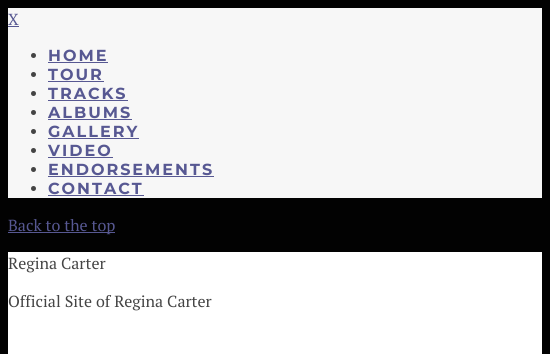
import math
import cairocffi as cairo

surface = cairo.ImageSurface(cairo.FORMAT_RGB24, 550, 354)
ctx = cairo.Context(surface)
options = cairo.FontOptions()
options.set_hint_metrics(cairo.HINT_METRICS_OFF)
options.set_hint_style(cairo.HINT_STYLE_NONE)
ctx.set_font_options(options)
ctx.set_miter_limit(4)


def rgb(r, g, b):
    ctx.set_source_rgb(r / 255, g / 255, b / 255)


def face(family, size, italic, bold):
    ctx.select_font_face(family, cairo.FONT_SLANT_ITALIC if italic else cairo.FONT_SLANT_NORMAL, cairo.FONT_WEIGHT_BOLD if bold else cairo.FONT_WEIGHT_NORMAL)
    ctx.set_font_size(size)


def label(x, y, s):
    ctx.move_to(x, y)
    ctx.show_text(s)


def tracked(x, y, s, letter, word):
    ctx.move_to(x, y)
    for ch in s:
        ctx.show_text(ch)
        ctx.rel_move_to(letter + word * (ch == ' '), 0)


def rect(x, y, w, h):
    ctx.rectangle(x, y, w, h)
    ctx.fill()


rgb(2, 2, 2)
ctx.paint()
rgb(247, 247, 247)
rect(8, 8, 534, 190)
face('PT Serif', 16, 0, 0)
rgb(87, 88, 146)
label(8, 25, 'X')
rect(8, 26, 11, 1)
rgb(68, 68, 68)
ctx.new_path()
ctx.arc(33.5, 55.5, 2.5, 0, 2 * math.pi)
ctx.fill()
face('Montserrat', 16, 0, 1)
rgb(87, 88, 146)
tracked(48, 61, 'HOME', 2, 0)
rect(48, 62, 60, 1)
rgb(68, 68, 68)
ctx.new_path()
ctx.arc(33.5, 74.5, 2.5, 0, 2 * math.pi)
ctx.fill()
rgb(87, 88, 146)
tracked(48, 80, 'TOUR', 2, 0)
rect(48, 81, 56, 1)
rgb(68, 68, 68)
ctx.new_path()
ctx.arc(33.5, 93.5, 2.5, 0, 2 * math.pi)
ctx.fill()
rgb(87, 88, 146)
tracked(48, 99, 'TRACKS', 2, 0)
rect(48, 100, 80, 1)
rgb(68, 68, 68)
ctx.new_path()
ctx.arc(33.5, 112.5, 2.5, 0, 2 * math.pi)
ctx.fill()
rgb(87, 88, 146)
tracked(48, 118, 'ALBUMS', 2, 0)
rect(48, 119, 84, 1)
rgb(68, 68, 68)
ctx.new_path()
ctx.arc(33.5, 131.5, 2.5, 0, 2 * math.pi)
ctx.fill()
rgb(87, 88, 146)
tracked(48, 137, 'GALLERY', 2, 0)
rect(48, 138, 91, 1)
rgb(68, 68, 68)
ctx.new_path()
ctx.arc(33.5, 150.5, 2.5, 0, 2 * math.pi)
ctx.fill()
rgb(87, 88, 146)
tracked(48, 156, 'VIDEO', 2, 0)
rect(48, 157, 65, 1)
rgb(68, 68, 68)
ctx.new_path()
ctx.arc(33.5, 169.5, 2.5, 0, 2 * math.pi)
ctx.fill()
rgb(87, 88, 146)
tracked(48, 175, 'ENDORSEMENTS', 2, 0)
rect(48, 176, 166, 1)
rgb(68, 68, 68)
ctx.new_path()
ctx.arc(33.5, 188.5, 2.5, 0, 2 * math.pi)
ctx.fill()
rgb(87, 88, 146)
tracked(48, 194, 'CONTACT', 2, 0)
rect(48, 195, 96, 1)
rect(8, 232, 107, 1)
face('PT Serif', 16, 0, 0)
label(8, 231, 'Back to the top')
rgb(255, 255, 255)
rect(8, 252, 534, 102)
rgb(68, 68, 68)
label(8, 269, 'Regina Carter')
label(8, 307, 'Official Site of Regina Carter')
surface.write_to_png('render.png')
